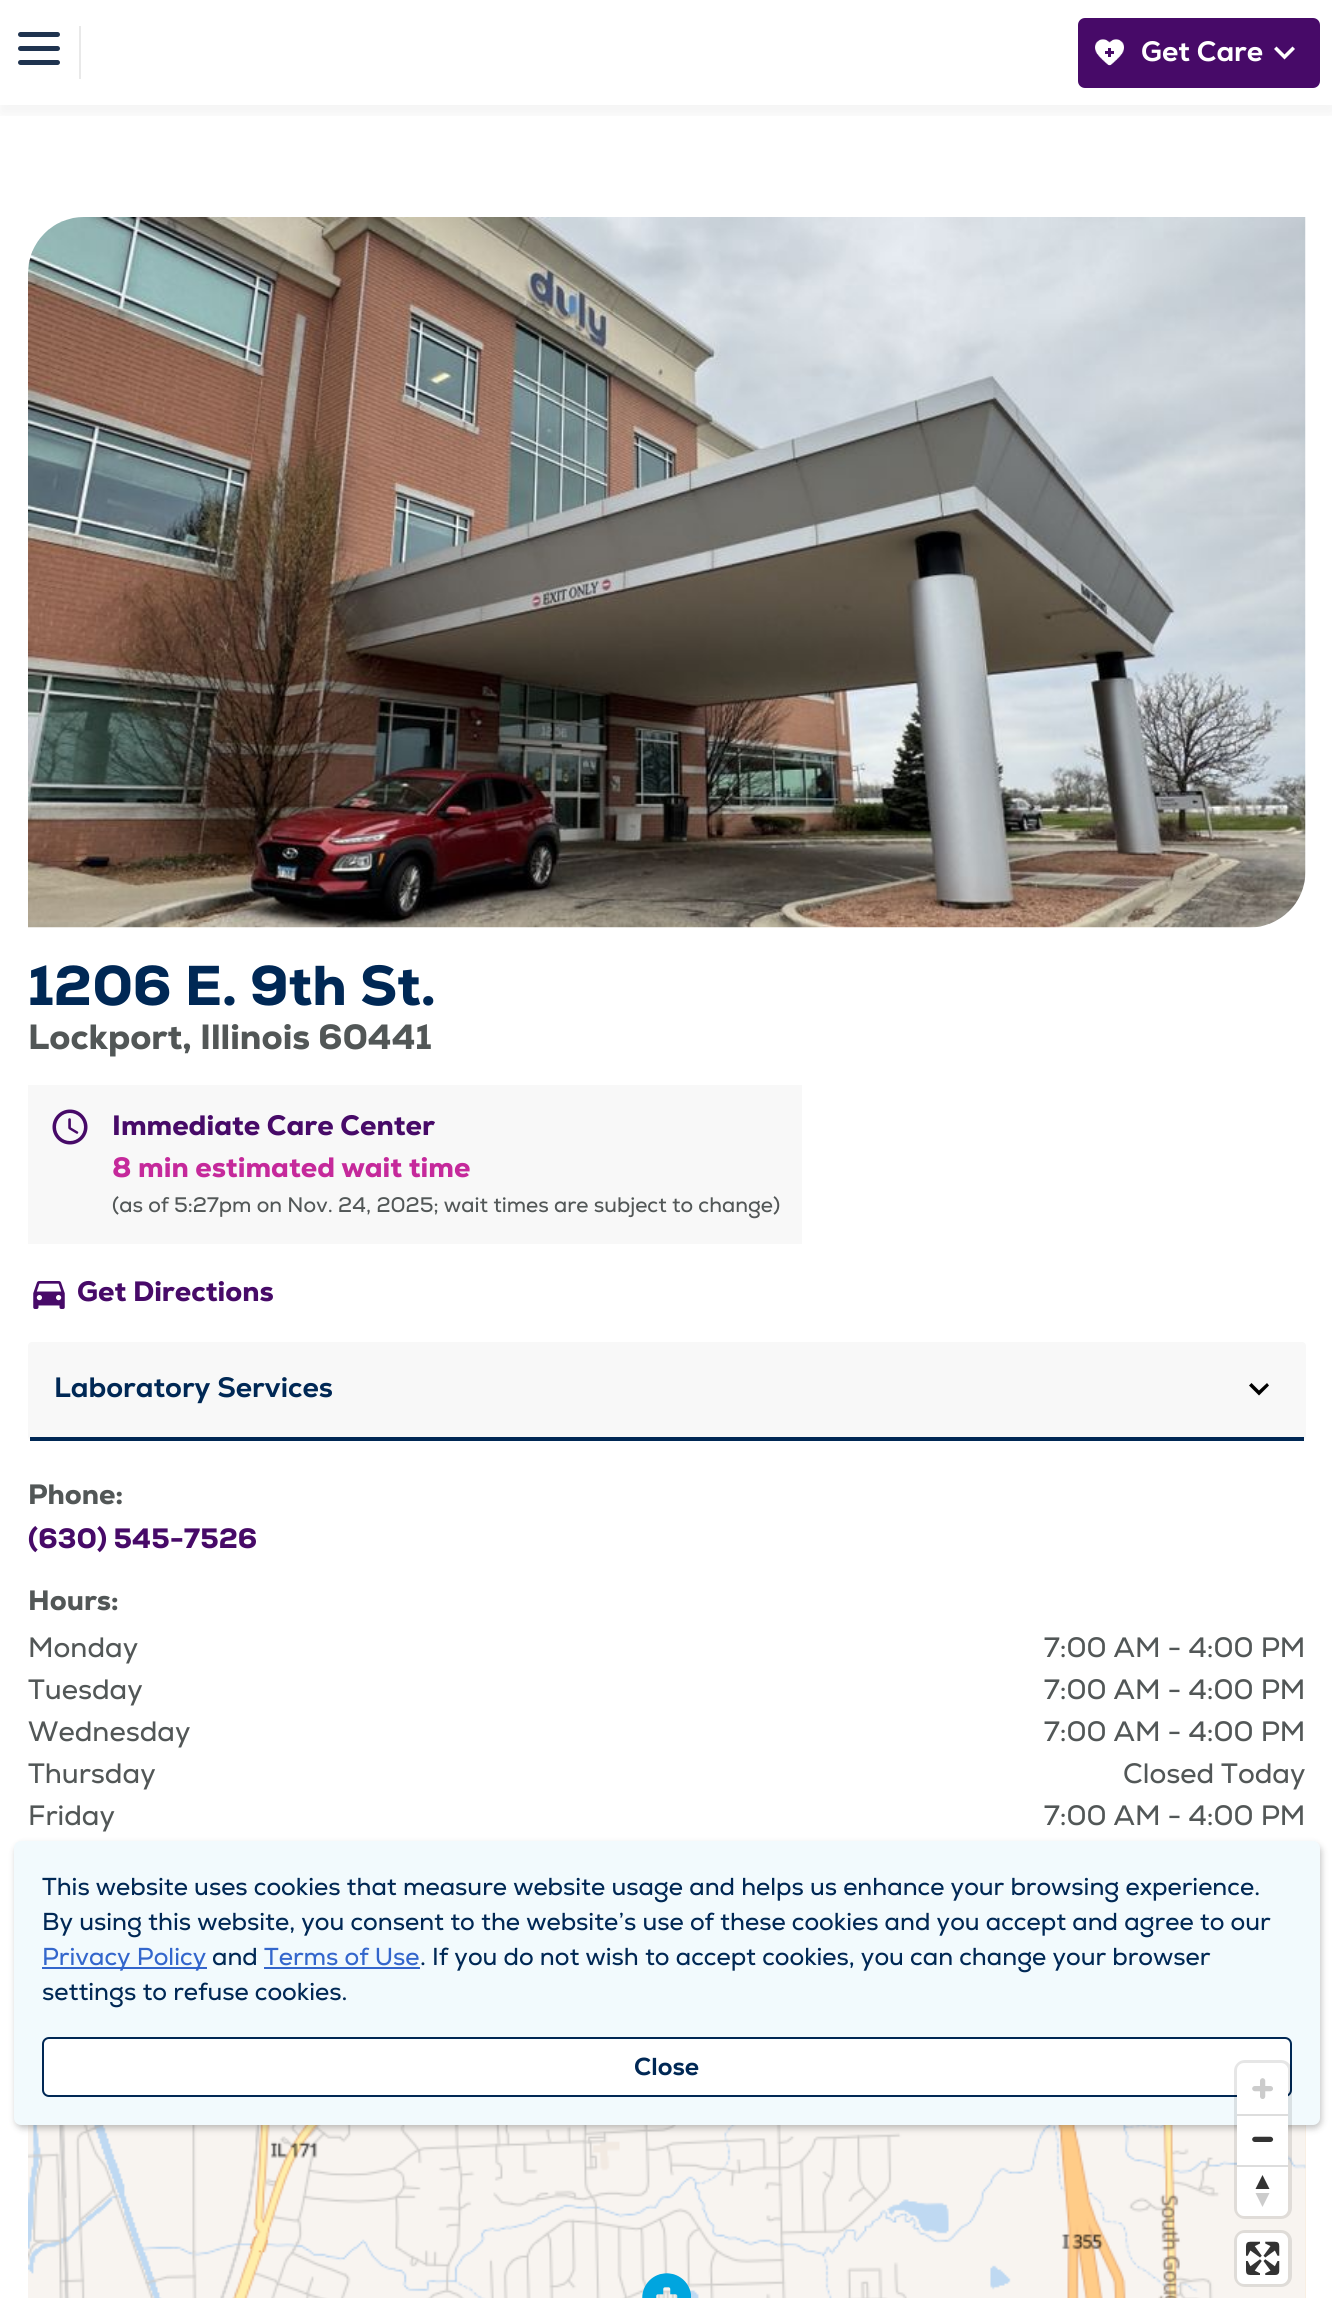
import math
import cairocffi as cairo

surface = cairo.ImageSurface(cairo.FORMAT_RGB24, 1332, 2298)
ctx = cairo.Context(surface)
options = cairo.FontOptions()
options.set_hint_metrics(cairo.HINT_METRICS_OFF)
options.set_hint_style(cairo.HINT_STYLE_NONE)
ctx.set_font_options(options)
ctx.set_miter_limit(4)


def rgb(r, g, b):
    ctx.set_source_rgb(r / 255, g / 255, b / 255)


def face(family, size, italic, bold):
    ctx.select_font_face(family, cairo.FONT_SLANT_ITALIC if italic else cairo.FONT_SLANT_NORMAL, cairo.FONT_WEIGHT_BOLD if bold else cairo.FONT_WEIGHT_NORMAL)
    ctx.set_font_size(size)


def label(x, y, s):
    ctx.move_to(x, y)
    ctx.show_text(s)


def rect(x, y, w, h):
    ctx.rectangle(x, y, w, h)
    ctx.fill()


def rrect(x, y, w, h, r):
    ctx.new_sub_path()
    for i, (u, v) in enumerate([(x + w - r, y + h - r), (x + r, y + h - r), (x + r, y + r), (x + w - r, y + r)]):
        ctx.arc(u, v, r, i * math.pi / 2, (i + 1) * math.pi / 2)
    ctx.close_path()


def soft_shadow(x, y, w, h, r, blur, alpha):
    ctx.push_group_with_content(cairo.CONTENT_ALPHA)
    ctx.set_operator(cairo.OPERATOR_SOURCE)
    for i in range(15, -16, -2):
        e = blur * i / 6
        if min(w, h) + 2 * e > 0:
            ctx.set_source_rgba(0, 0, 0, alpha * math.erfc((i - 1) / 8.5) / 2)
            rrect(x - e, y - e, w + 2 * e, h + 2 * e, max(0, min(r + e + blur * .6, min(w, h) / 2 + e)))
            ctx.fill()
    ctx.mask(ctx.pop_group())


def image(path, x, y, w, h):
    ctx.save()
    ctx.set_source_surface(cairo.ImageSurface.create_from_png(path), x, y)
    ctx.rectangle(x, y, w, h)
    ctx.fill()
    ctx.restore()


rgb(255, 255, 255)
ctx.paint()
ctx.save()
ctx.rectangle(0, 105, 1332, 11)
ctx.clip()
rgb(0, 0, 0)
soft_shadow(0, 9, 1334, 105, 0, 9, 0.05)
ctx.restore()
rgb(31, 51, 79)
rrect(18, 32, 42, 5, 2.5)
ctx.fill()
rrect(18, 46, 42, 5, 2.5)
ctx.fill()
rrect(18, 60, 42, 5, 2.5)
ctx.fill()
rgb(233, 233, 233)
rect(79, 26, 2, 53)
rgb(71, 10, 104)
rrect(1078, 18, 242, 70, 7)
ctx.fill()
image('image0.png', 1095, 39, 29, 27)
face('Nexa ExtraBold', 28, 0, 0)
rgb(255, 255, 255)
label(1141, 61, 'Get Care')
ctx.new_path()
ctx.move_to(1276.5, 46.5)
ctx.line_to(1284.5, 54.5)
ctx.line_to(1292.5, 46.5)
ctx.line_to(1295, 49)
ctx.line_to(1284.5, 59.5)
ctx.line_to(1274, 49)
ctx.close_path()
ctx.fill()
image('image1.png', 28, 217, 1278, 711)
face('Nexa Black', 56, 0, 0)
rgb(0, 40, 85)
label(28, 1005, '1206 E. 9th St.')
face('Nexa Black', 35, 0, 0)
rgb(82, 87, 87)
label(28, 1049, 'Lockport, Illinois 60441')
rgb(248, 248, 248)
rect(28, 1085, 774, 159)
image('image2.png', 52, 1109, 36, 36)
face('Nexa Black', 28, 0, 0)
rgb(71, 10, 104)
label(112, 1135, 'Immediate Care Center')
rgb(197, 41, 155)
label(112, 1177, '8 min estimated wait time')
face('Nexa', 21, 0, 0)
rgb(82, 87, 87)
label(112, 1212, '(as of 5:27pm on Nov. 24, 2025; wait times are subject to change)')
image('image3.png', 33, 1281, 32, 28)
face('Nexa Black', 28, 0, 0)
rgb(71, 10, 104)
label(77, 1301, 'Get Directions')
rgb(248, 248, 248)
rrect(28, 1342, 1278, 98, 4)
ctx.fill()
rgb(0, 40, 85)
rect(30, 1437, 1274, 4)
face('Nexa ExtraBold', 28, 0, 0)
label(54, 1397, 'Laboratory Services')
rgb(0, 0, 0)
ctx.new_path()
ctx.move_to(1267, 1383)
ctx.line_to(1259, 1390.5)
ctx.line_to(1251.5, 1383)
ctx.line_to(1249, 1385.5)
ctx.line_to(1259, 1395.5)
ctx.line_to(1269, 1385.5)
ctx.close_path()
ctx.fill()
face('Nexa Black', 28, 0, 0)
rgb(82, 87, 87)
label(28, 1504, 'Phone:')
rgb(71, 10, 104)
label(28, 1548, '(630) 545-7526')
rgb(82, 87, 87)
label(28, 1610, 'Hours:')
face('Nexa', 28, 0, 0)
label(28, 1657, 'Monday')
label(1044, 1657, '7:00 AM - 4:00 PM')
label(28, 1699, 'Tuesday')
label(1044, 1699, '7:00 AM - 4:00 PM')
label(28, 1741, 'Wednesday')
label(1044, 1741, '7:00 AM - 4:00 PM')
label(28, 1783, 'Thursday')
label(1123, 1783, 'Closed Today')
label(28, 1825, 'Friday')
label(1044, 1825, '7:00 AM - 4:00 PM')
rgb(250, 235, 215)
rect(1305, 2125, 1, 173)
image('image7.png', 28, 2125, 1278, 173)
rgb(0, 0, 0)
soft_shadow(16, 1845, 1305, 283, 7, 3.5, 0.25)
rgb(242, 250, 253)
rrect(14, 1841, 1306, 284, 7)
ctx.fill()
rgb(255, 255, 255)
rrect(43, 2038, 1248, 58, 6)
ctx.fill_preserve()
rgb(0, 40, 85)
ctx.stroke()
rrect(1236, 2062, 54, 155, 9)
ctx.set_source_rgba(0, 0, 0, 0.1)
ctx.set_line_width(4)
ctx.stroke()
rgb(255, 255, 255)
rrect(1237, 2063, 51, 153, 7)
ctx.fill()
image('image4.png', 1252, 2078, 21, 21)
rgb(221, 221, 221)
rect(1237, 2114, 51, 2)
image('image5.png', 1252, 2136, 22, 6)
rect(1237, 2165, 51, 2)
rgb(51, 51, 51)
ctx.new_path()
ctx.move_to(1255.5, 2189)
ctx.line_to(1262.5, 2175)
ctx.line_to(1269.5, 2189)
ctx.close_path()
ctx.fill()
rgb(204, 204, 204)
ctx.new_path()
ctx.move_to(1255.5, 2193)
ctx.line_to(1262.5, 2207)
ctx.line_to(1269.5, 2193)
ctx.close_path()
ctx.fill()
rrect(1236, 2232, 54, 53, 9)
rgb(223, 220, 216)
ctx.stroke()
rgb(255, 255, 255)
rrect(1237, 2233, 51, 51, 7)
ctx.fill()
image('image6.png', 1246, 2241, 34, 34)
image('image8.png', 642, 2273, 49, 25)
face('Nexa', 24.5, 0, 0)
rgb(0, 40, 85)
label(42, 1895, 'This website uses cookies that measure website usage and helps us enhance your browsing experience.')
label(42, 1930, 'By using this website, you consent to the website’s use of these cookies and you accept and agree to our')
rgb(51, 102, 204)
rect(42, 1967, 165, 2)
label(42, 1965, 'Privacy Policy')
rgb(0, 40, 85)
label(212, 1965, 'and')
rgb(51, 102, 204)
label(264, 1965, 'Terms of Use')
rect(264, 1967, 156, 2)
rgb(0, 40, 85)
label(420, 1965, '. If you do not wish to accept cookies, you can change your browser')
label(42, 2000, 'settings to refuse cookies.')
face('Nexa ExtraBold', 24.5, 0, 0)
label(634, 2075, 'Close')
surface.write_to_png('render.png')
